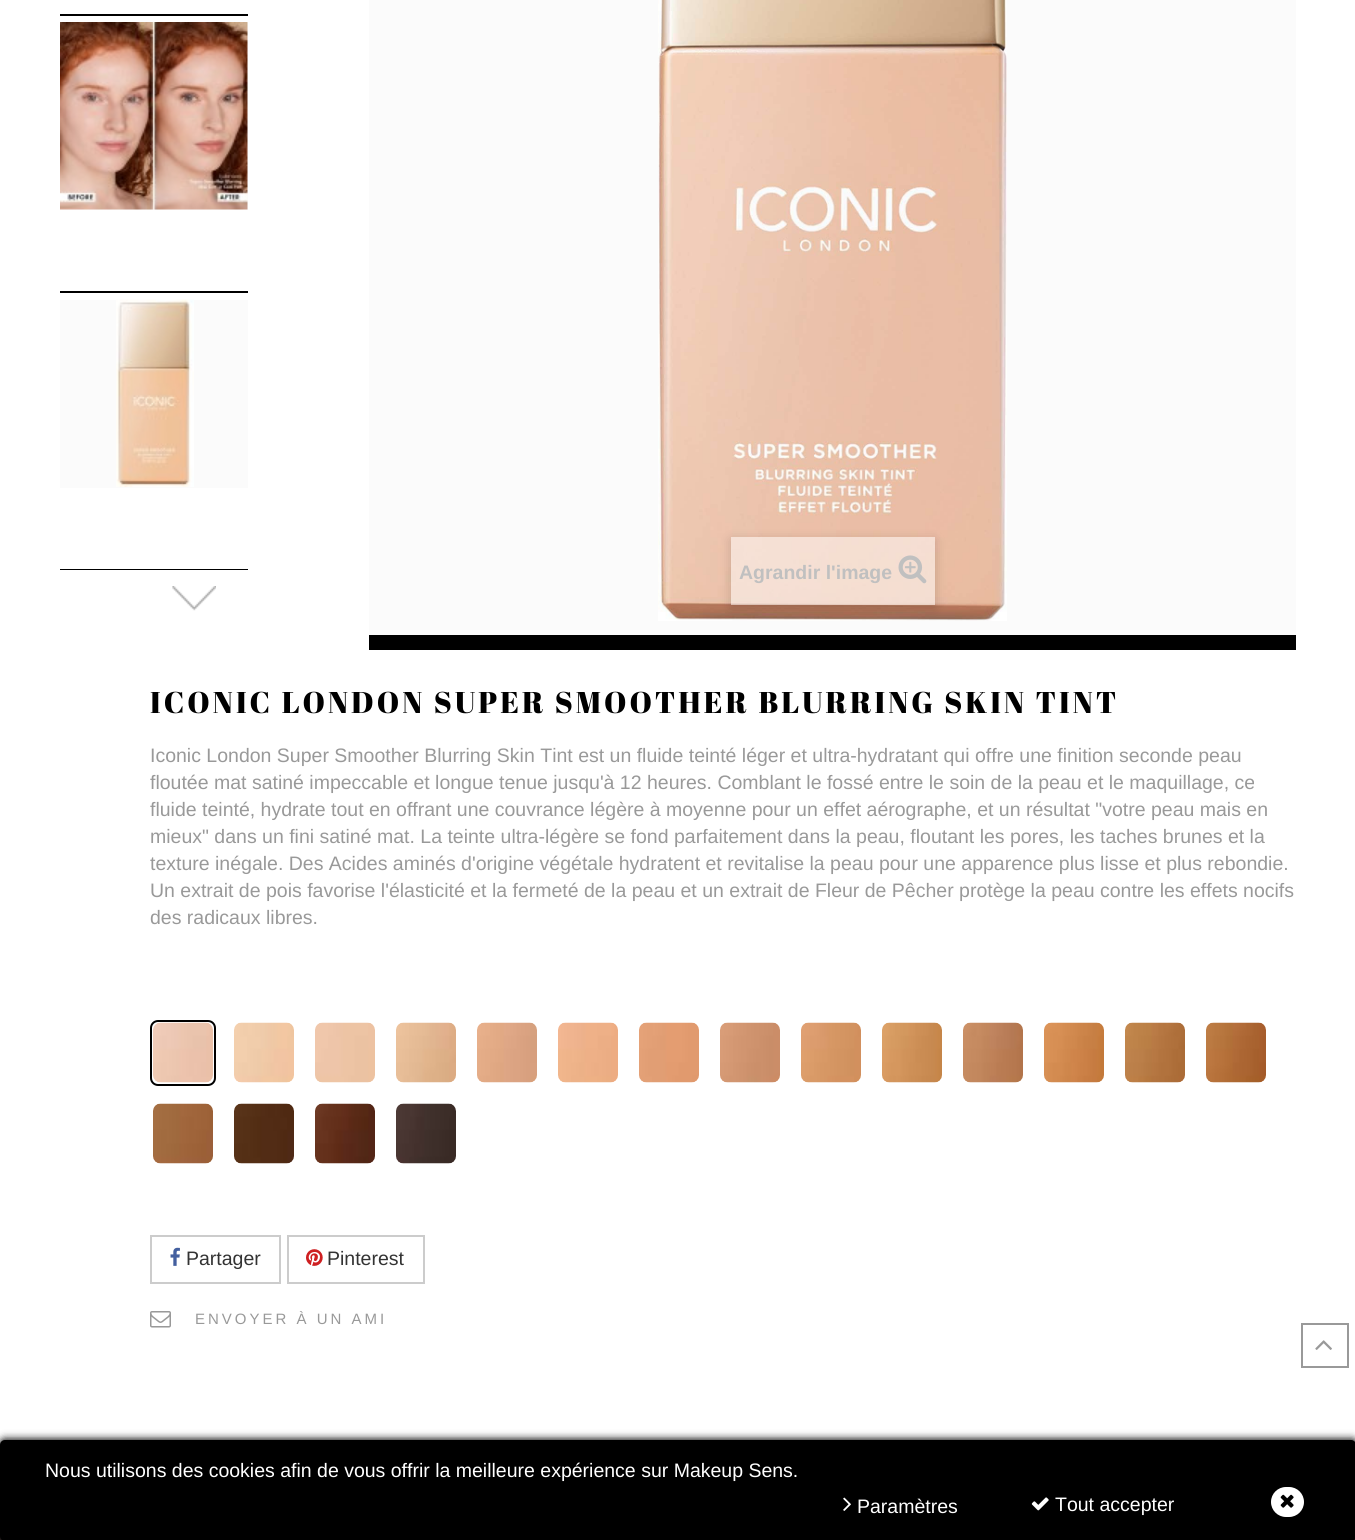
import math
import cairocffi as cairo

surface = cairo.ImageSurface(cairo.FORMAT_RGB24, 1355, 1540)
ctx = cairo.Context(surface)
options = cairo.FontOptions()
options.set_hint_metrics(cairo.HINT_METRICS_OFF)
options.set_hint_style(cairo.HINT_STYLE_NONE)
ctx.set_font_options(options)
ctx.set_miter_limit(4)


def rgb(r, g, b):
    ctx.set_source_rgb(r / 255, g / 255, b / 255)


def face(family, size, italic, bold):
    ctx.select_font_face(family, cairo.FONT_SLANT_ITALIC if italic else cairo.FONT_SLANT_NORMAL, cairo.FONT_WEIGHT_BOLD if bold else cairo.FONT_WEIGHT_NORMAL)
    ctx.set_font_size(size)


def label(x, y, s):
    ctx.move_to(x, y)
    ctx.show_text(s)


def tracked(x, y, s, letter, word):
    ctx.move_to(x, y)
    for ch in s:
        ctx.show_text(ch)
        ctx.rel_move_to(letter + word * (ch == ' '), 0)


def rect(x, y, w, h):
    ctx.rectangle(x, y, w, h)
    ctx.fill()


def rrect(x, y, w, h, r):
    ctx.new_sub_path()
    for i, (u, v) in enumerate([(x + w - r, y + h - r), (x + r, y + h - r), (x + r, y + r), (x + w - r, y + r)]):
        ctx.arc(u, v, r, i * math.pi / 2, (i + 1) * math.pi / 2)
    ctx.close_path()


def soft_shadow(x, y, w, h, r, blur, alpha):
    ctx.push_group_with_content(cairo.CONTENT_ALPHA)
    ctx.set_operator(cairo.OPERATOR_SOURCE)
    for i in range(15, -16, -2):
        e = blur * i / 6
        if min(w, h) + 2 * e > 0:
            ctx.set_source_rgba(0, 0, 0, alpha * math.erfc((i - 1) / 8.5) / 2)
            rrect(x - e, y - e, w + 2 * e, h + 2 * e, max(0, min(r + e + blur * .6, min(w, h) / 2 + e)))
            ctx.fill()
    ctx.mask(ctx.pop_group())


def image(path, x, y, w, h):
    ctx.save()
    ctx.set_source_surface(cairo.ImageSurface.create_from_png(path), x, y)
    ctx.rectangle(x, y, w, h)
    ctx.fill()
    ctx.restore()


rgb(255, 255, 255)
ctx.paint()
rgb(0, 0, 0)
rect(60, 14, 188, 2)
rect(60, 291, 188, 2)
rgb(251, 251, 251)
rect(60, 23, 188, 187)
image('image0.png', 60, 22, 188, 188)
rgb(0, 0, 0)
rect(60, 569, 188, 1)
rgb(251, 251, 251)
rect(60, 300, 188, 188)
image('image1.png', 116, 299, 78, 188)
image('image2.png', 172, 586, 44, 25)
rgb(0, 0, 0)
rect(369, 635, 927, 15)
rgb(251, 251, 251)
rect(369, 0, 927, 635)
image('image3.png', 658, 0, 349, 621)
ctx.save()
ctx.set_fill_rule(cairo.FILL_RULE_EVEN_ODD)
ctx.new_path()
ctx.move_to(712, 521)
ctx.line_to(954, 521)
ctx.line_to(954, 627)
ctx.line_to(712, 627)
ctx.close_path()
ctx.move_to(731, 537)
ctx.line_to(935, 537)
ctx.line_to(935, 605)
ctx.line_to(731, 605)
ctx.close_path()
ctx.clip()
rgb(0, 0, 0)
soft_shadow(731, 540, 204, 68, 0, 6, 0.16)
ctx.restore()
ctx.set_source_rgba(1, 1, 1, 0.5)
rect(731, 537, 204, 68)
face('Liberation Sans', 19.5, 0, 1)
rgb(192, 192, 192)
label(739, 579, 'Agrandir l\'image')
image('image4.png', 898, 555, 29, 29)
face('Abril Fatface', 30, 0, 0)
rgb(0, 0, 0)
tracked(150, 713, 'ICONIC LONDON SUPER SMOOTHER BLURRING SKIN TINT', 3, 0)
face('Liberation Sans', 19.5, 0, 0)
rgb(153, 153, 153)
label(150, 762, 'Iconic London Super Smoother Blurring Skin Tint est un fluide teinté léger et ultra-hydratant qui offre une finition seconde peau')
label(150, 789, 'floutée mat satiné impeccable et longue tenue jusqu\'à 12 heures. Comblant le fossé entre le soin de la peau et le maquillage, ce')
label(150, 816, 'fluide teinté, hydrate tout en offrant une couvrance légère à moyenne pour un effet aérographe, et un résultat "votre peau mais en')
label(150, 843, 'mieux" dans un fini satiné mat. La teinte ultra-légère se fond parfaitement dans la peau, floutant les pores, les taches brunes et la')
label(150, 870, 'texture inégale. Des Acides aminés d\'origine végétale hydratent et revitalise la peau pour une apparence plus lisse et plus rebondie.')
label(150, 897, 'Un extrait de pois favorise l\'élasticité et la fermeté de la peau et un extrait de Fleur de Pêcher protège la peau contre les effets nocifs')
label(150, 924, 'des radicaux libres.')
rrect(151, 1021, 64, 64, 7)
rgb(0, 0, 0)
ctx.stroke()
image('image5.png', 153, 1022, 60, 61)
image('image6.png', 234, 1022, 60, 61)
image('image7.png', 315, 1022, 60, 61)
image('image8.png', 396, 1022, 60, 61)
image('image9.png', 477, 1022, 60, 61)
image('image10.png', 558, 1022, 60, 61)
image('image11.png', 639, 1022, 60, 61)
image('image12.png', 720, 1022, 60, 61)
image('image13.png', 801, 1022, 60, 61)
image('image14.png', 882, 1022, 60, 61)
image('image15.png', 963, 1022, 60, 61)
image('image16.png', 1044, 1022, 60, 61)
image('image17.png', 1125, 1022, 60, 61)
image('image18.png', 1206, 1022, 60, 61)
image('image19.png', 153, 1103, 60, 61)
image('image20.png', 234, 1103, 60, 61)
image('image21.png', 315, 1103, 60, 61)
image('image22.png', 396, 1103, 60, 61)
ctx.rectangle(151, 1236, 129, 47)
rgb(204, 204, 204)
ctx.stroke()
image('image23.png', 170, 1247, 10, 19)
rgb(51, 51, 51)
label(186, 1265, 'Partager')
ctx.rectangle(288, 1236, 136, 47)
rgb(204, 204, 204)
ctx.stroke()
image('image24.png', 306, 1249, 17, 17)
rgb(51, 51, 51)
label(327, 1265, 'Pinterest')
image('image25.png', 150, 1311, 21, 17)
face('Liberation Sans', 15, 0, 0)
rgb(153, 153, 153)
tracked(195, 1324, 'ENVOYER À UN AMI', 3, 0)
image('image26.png', 0, 1536, 1355, 4)
ctx.rectangle(1302, 1324, 46, 43)
ctx.stroke()
image('image27.png', 1315, 1340, 17, 10)
rgb(0, 0, 0)
soft_shadow(-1, 1439, 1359, 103, 6, 4, 1)
rgb(0, 0, 0)
rrect(0, 1440, 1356, 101, 5)
ctx.fill()
face('Liberation Sans', 19.5, 0, 0)
rgb(255, 255, 255)
label(45, 1477, 'Nous utilisons des cookies afin de vous offrir la meilleure expérience sur Makeup Sens.')
image('image28.png', 843, 1497, 8, 14)
label(857, 1513, 'Paramètres')
image('image29.png', 1031, 1497, 18, 14)
label(1055, 1511, 'Tout accepter')
rrect(1271, 1487, 33, 30, 15)
ctx.fill()
image('image30.png', 1280, 1494, 14, 14)
surface.write_to_png('render.png')
